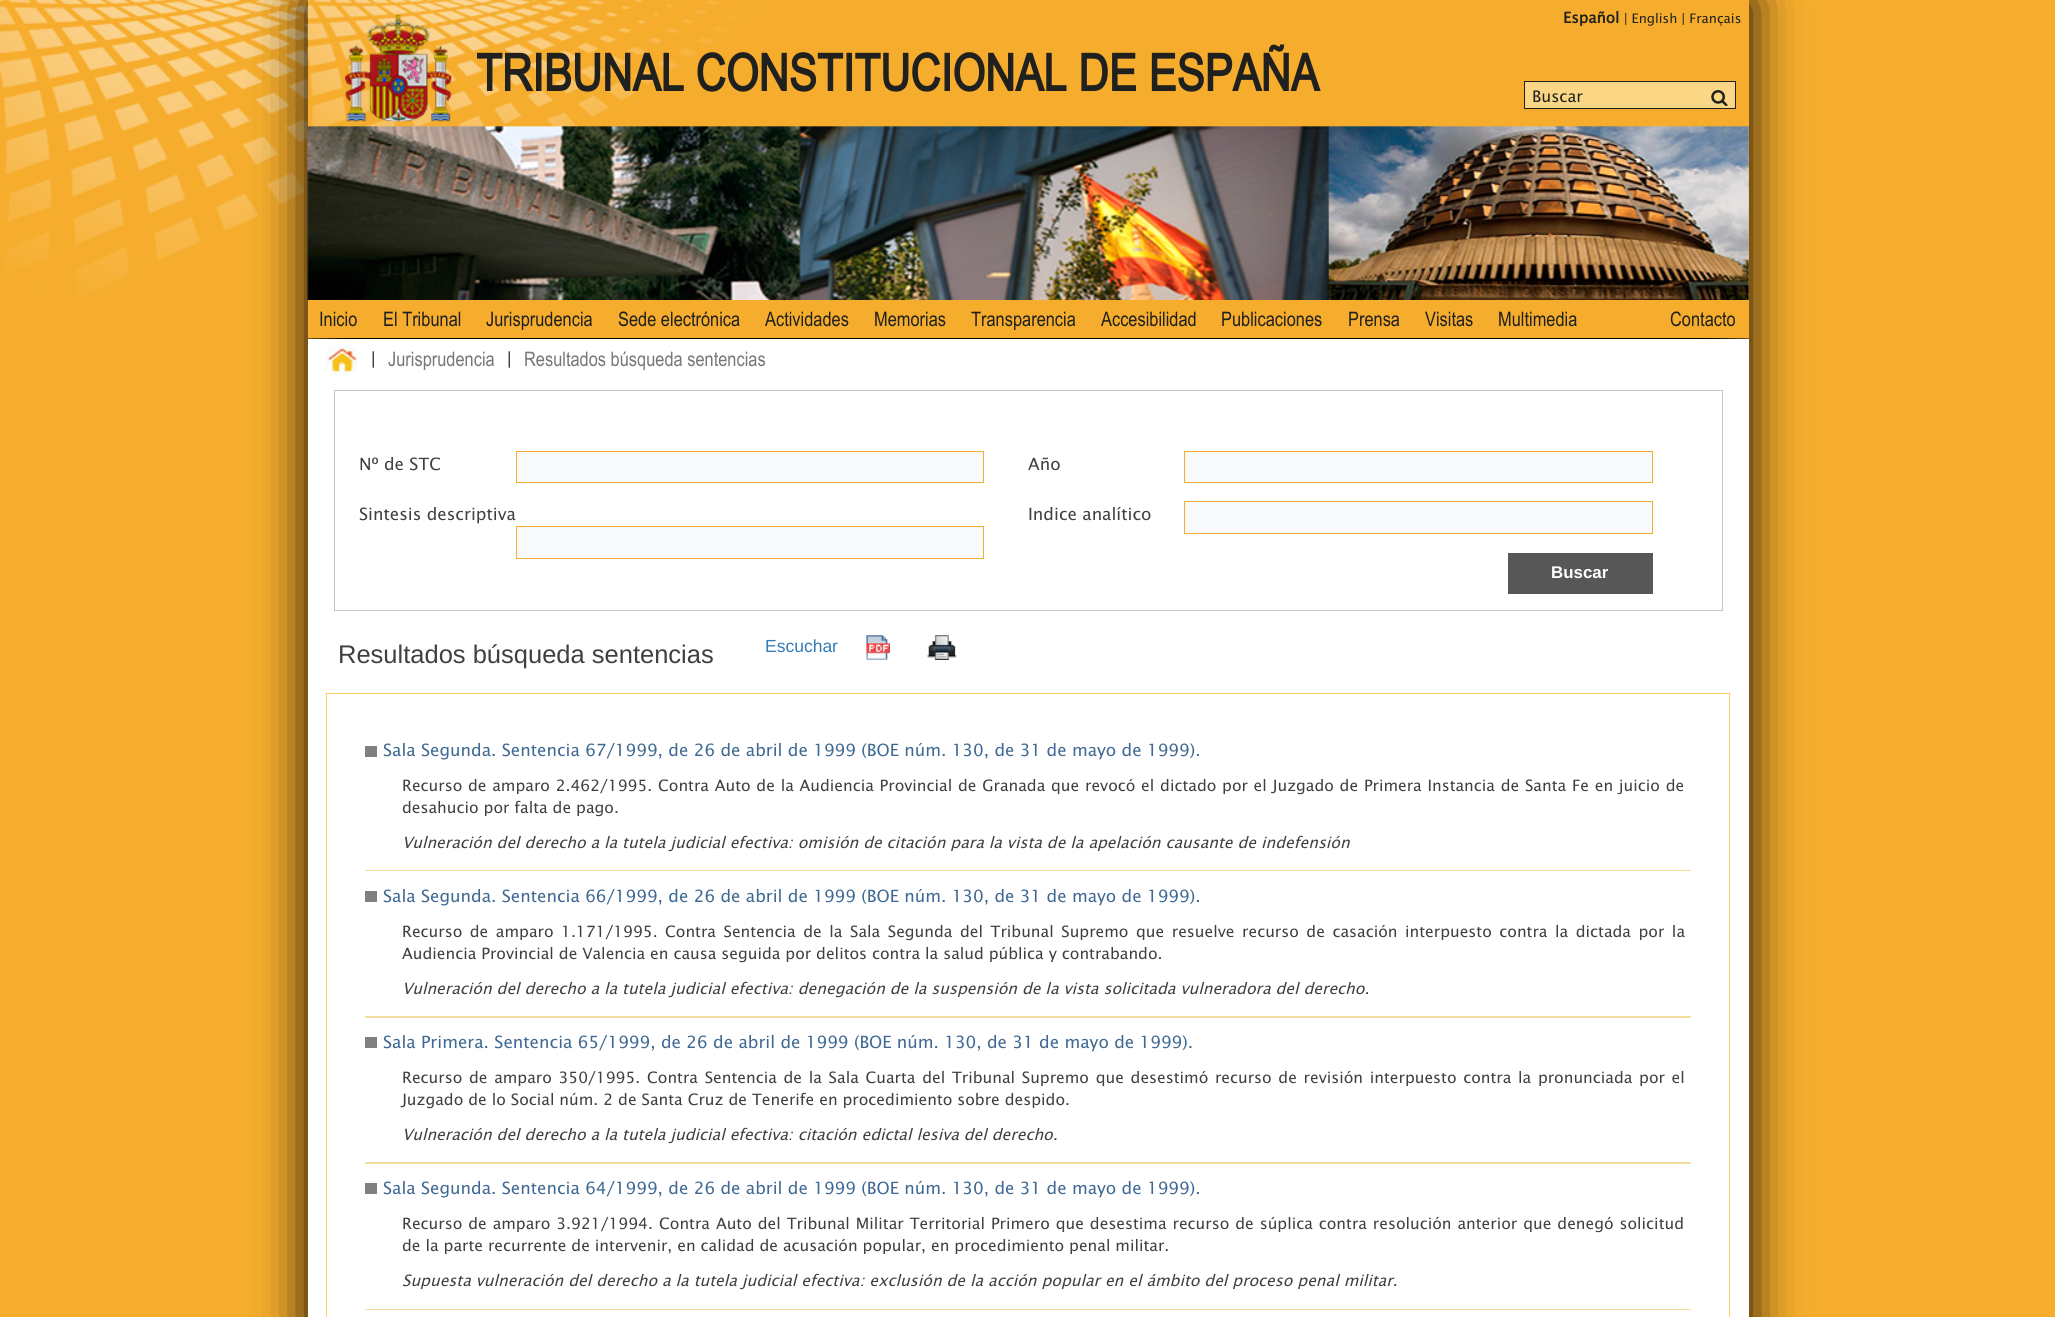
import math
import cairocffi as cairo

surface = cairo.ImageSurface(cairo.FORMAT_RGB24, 2055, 1317)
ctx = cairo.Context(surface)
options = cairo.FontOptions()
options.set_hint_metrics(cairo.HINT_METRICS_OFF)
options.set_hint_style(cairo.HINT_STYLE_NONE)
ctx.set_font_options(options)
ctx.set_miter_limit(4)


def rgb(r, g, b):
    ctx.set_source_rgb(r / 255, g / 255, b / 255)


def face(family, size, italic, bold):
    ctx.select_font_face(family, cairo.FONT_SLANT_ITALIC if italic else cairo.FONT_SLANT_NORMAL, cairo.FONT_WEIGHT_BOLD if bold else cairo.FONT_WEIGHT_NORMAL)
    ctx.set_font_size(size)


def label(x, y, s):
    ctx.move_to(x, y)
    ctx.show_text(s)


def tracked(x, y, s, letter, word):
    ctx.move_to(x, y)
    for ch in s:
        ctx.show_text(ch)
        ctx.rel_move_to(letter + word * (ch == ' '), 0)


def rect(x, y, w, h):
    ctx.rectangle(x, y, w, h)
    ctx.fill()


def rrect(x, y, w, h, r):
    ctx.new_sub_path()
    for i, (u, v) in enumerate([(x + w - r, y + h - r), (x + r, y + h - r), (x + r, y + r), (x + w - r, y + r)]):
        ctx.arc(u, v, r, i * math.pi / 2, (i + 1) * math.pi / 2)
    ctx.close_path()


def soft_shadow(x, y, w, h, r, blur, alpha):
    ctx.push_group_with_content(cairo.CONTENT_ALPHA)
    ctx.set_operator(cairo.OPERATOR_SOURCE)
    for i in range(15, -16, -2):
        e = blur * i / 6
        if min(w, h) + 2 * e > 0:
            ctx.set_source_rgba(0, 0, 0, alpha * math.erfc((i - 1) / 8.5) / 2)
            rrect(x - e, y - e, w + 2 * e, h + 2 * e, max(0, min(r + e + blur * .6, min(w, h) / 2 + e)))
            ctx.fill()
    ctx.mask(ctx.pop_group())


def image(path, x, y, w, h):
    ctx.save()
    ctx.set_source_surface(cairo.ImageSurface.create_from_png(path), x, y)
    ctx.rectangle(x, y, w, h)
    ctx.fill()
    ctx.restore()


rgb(246, 173, 45)
ctx.paint()
image('image0.png', 0, 0, 308, 296)
rgb(0, 0, 0)
soft_shadow(308, 0, 1441, 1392, 0, 25, 1)
rgb(246, 173, 45)
rect(308, 0, 1441, 338)
image('image1.png', 307, 0, 1442, 300)
face('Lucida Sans', 15, 0, 1)
rgb(32, 32, 30)
label(1563, 23, 'Español')
face('Lucida Sans', 13.1, 0, 0)
label(1624, 23, '| English | Français')
image('image2.png', 345, 15, 107, 107)
face('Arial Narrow', 51.25, 0, 1)
label(476, 91, 'TRIBUNAL CONSTITUCIONAL DE ESPAÑA')
rgb(251, 214, 133)
ctx.rectangle(1524.5, 81.5, 211, 27)
ctx.fill_preserve()
rgb(32, 32, 30)
ctx.set_line_width(1)
ctx.stroke()
face('Lucida Sans', 16, 0, 0)
label(1532, 102, 'Buscar')
image('image3.png', 1711, 90, 17, 16)
face('Arial Narrow', 20, 0, 0)
label(319, 326, 'Inicio')
label(383, 326, 'El Tribunal')
label(486, 326, 'Jurisprudencia')
label(618, 326, 'Sede electrónica')
label(765, 326, 'Actividades')
label(874, 326, 'Memorias')
label(971, 326, 'Transparencia')
label(1101, 326, 'Accesibilidad')
label(1221, 326, 'Publicaciones')
label(1348, 326, 'Prensa')
label(1425, 326, 'Visitas')
label(1498, 326, 'Multimedia')
label(1670, 326, 'Contacto')
rgb(255, 255, 255)
rect(308, 339, 1441, 978)
image('image4.png', 326, 345, 31, 30)
face('Liberation Sans', 17.5, 0, 0)
rgb(64, 64, 64)
label(371, 364, '|')
face('Arial Narrow', 20, 0, 0)
rgb(119, 119, 119)
label(388, 366, 'Jurisprudencia')
face('Liberation Sans', 17.5, 0, 0)
rgb(64, 64, 64)
label(507, 364, '|')
face('Arial Narrow', 20, 0, 0)
rgb(119, 119, 119)
label(524, 366, 'Resultados búsqueda sentencias')
ctx.rectangle(334.5, 390.5, 1388, 220)
rgb(198, 198, 198)
ctx.stroke()
face('Lucida Sans', 16.9, 0, 0)
rgb(64, 64, 64)
label(359, 470, 'Nº de STC')
rgb(249, 250, 251)
ctx.rectangle(516.5, 451.5, 467, 31)
ctx.fill_preserve()
rgb(246, 172, 44)
ctx.stroke()
rgb(64, 64, 64)
label(1028, 470, 'Año')
rgb(249, 250, 251)
ctx.rectangle(1184.5, 451.5, 468, 31)
ctx.fill_preserve()
rgb(246, 172, 44)
ctx.stroke()
rgb(64, 64, 64)
label(359, 520, 'Sintesis descriptiva')
rgb(249, 250, 251)
ctx.rectangle(516.5, 526.5, 467, 32)
ctx.fill_preserve()
rgb(246, 172, 44)
ctx.stroke()
rgb(64, 64, 64)
label(1028, 520, 'Indice analítico')
rgb(249, 250, 251)
ctx.rectangle(1184.5, 501.5, 468, 32)
ctx.fill_preserve()
rgb(246, 172, 44)
ctx.stroke()
rgb(88, 87, 87)
rect(1508, 553, 145, 41)
face('Liberation Sans', 16.9, 0, 1)
rgb(255, 255, 255)
label(1551, 578, 'Buscar')
face('Liberation Sans', 25.5, 0, 0)
rgb(64, 64, 64)
label(338, 663, 'Resultados búsqueda sentencias')
face('Liberation Sans', 17.5, 0, 0)
rgb(51, 122, 183)
label(765, 652, 'Escuchar')
image('image5.png', 866, 635, 24, 26)
image('image6.png', 927, 635, 30, 25)
ctx.rectangle(326.5, 693.5, 1403, 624)
rgb(255, 204, 102)
ctx.stroke()
rgb(244, 219, 158)
rect(365, 870, 1326, 1)
rgb(128, 128, 128)
rect(365, 746, 12, 11)
face('Lucida Sans', 16.9, 0, 0)
rgb(63, 105, 146)
label(383, 756, 'Sala Segunda. Sentencia 67/1999, de 26 de abril de 1999 (BOE núm. 130, de 31 de mayo de 1999).')
face('Lucida Sans', 15.62, 0, 0)
rgb(64, 64, 64)
tracked(402, 791, 'Recurso de amparo 2.462/1995.', 0, 0.8)
tracked(658, 791, 'Contra Auto de la Audiencia Provincial de Granada que revocó el dictado por el Juzgado de Primera Instancia de Santa Fe en juicio de', 0, 0.8)
label(402, 813, 'desahucio por falta de pago.')
face('Lucida Sans', 15.62, 1, 0)
label(402, 848, 'Vulneración del derecho a la tutela judicial efectiva: omisión de citación para la vista de la apelación causante de indefensión')
rgb(244, 219, 158)
rect(365, 1016, 1326, 2)
rgb(128, 128, 128)
rect(365, 891, 12, 11)
face('Lucida Sans', 16.9, 0, 0)
rgb(63, 105, 146)
label(383, 902, 'Sala Segunda. Sentencia 66/1999, de 26 de abril de 1999 (BOE núm. 130, de 31 de mayo de 1999).')
face('Lucida Sans', 15.62, 0, 0)
rgb(64, 64, 64)
tracked(402, 937, 'Recurso de amparo 1.171/1995.', 0, 2.6)
tracked(665, 937, 'Contra Sentencia de la Sala Segunda del Tribunal Supremo que resuelve recurso de casación interpuesto contra la dictada por la', 0, 2.6)
label(402, 959, 'Audiencia Provincial de Valencia en causa seguida por delitos contra la salud pública y contrabando.')
face('Lucida Sans', 15.62, 1, 0)
label(402, 994, 'Vulneración del derecho a la tutela judicial efectiva: denegación de la suspensión de la vista solicitada vulneradora del derecho.')
rgb(244, 219, 158)
rect(365, 1162, 1326, 2)
rgb(128, 128, 128)
rect(365, 1037, 12, 11)
face('Lucida Sans', 16.9, 0, 0)
rgb(63, 105, 146)
label(383, 1048, 'Sala Primera. Sentencia 65/1999, de 26 de abril de 1999 (BOE núm. 130, de 31 de mayo de 1999).')
face('Lucida Sans', 15.62, 0, 0)
rgb(64, 64, 64)
tracked(402, 1083, 'Recurso de amparo 350/1995.', 0, 1.75)
tracked(647, 1083, 'Contra Sentencia de la Sala Cuarta del Tribunal Supremo que desestimó recurso de revisión interpuesto contra la pronunciada por el', 0, 1.75)
label(402, 1105, 'Juzgado de lo Social núm. 2 de Santa Cruz de Tenerife en procedimiento sobre despido.')
face('Lucida Sans', 15.62, 1, 0)
label(402, 1140, 'Vulneración del derecho a la tutela judicial efectiva: citación edictal lesiva del derecho.')
rgb(244, 219, 158)
rect(365, 1309, 1326, 1)
rgb(128, 128, 128)
rect(365, 1183, 12, 11)
face('Lucida Sans', 16.9, 0, 0)
rgb(63, 105, 146)
label(383, 1194, 'Sala Segunda. Sentencia 64/1999, de 26 de abril de 1999 (BOE núm. 130, de 31 de mayo de 1999).')
face('Lucida Sans', 15.62, 0, 0)
rgb(64, 64, 64)
tracked(402, 1229, 'Recurso de amparo 3.921/1994.', 0, 1)
tracked(659, 1229, 'Contra Auto del Tribunal Militar Territorial Primero que desestima recurso de súplica contra resolución anterior que denegó solicitud', 0, 1)
label(402, 1251, 'de la parte recurrente de intervenir, en calidad de acusación popular, en procedimiento penal militar.')
face('Lucida Sans', 15.62, 1, 0)
label(402, 1286, 'Supuesta vulneración del derecho a la tutela judicial efectiva: exclusión de la acción popular en el ámbito del proceso penal militar.')
surface.write_to_png('render.png')
